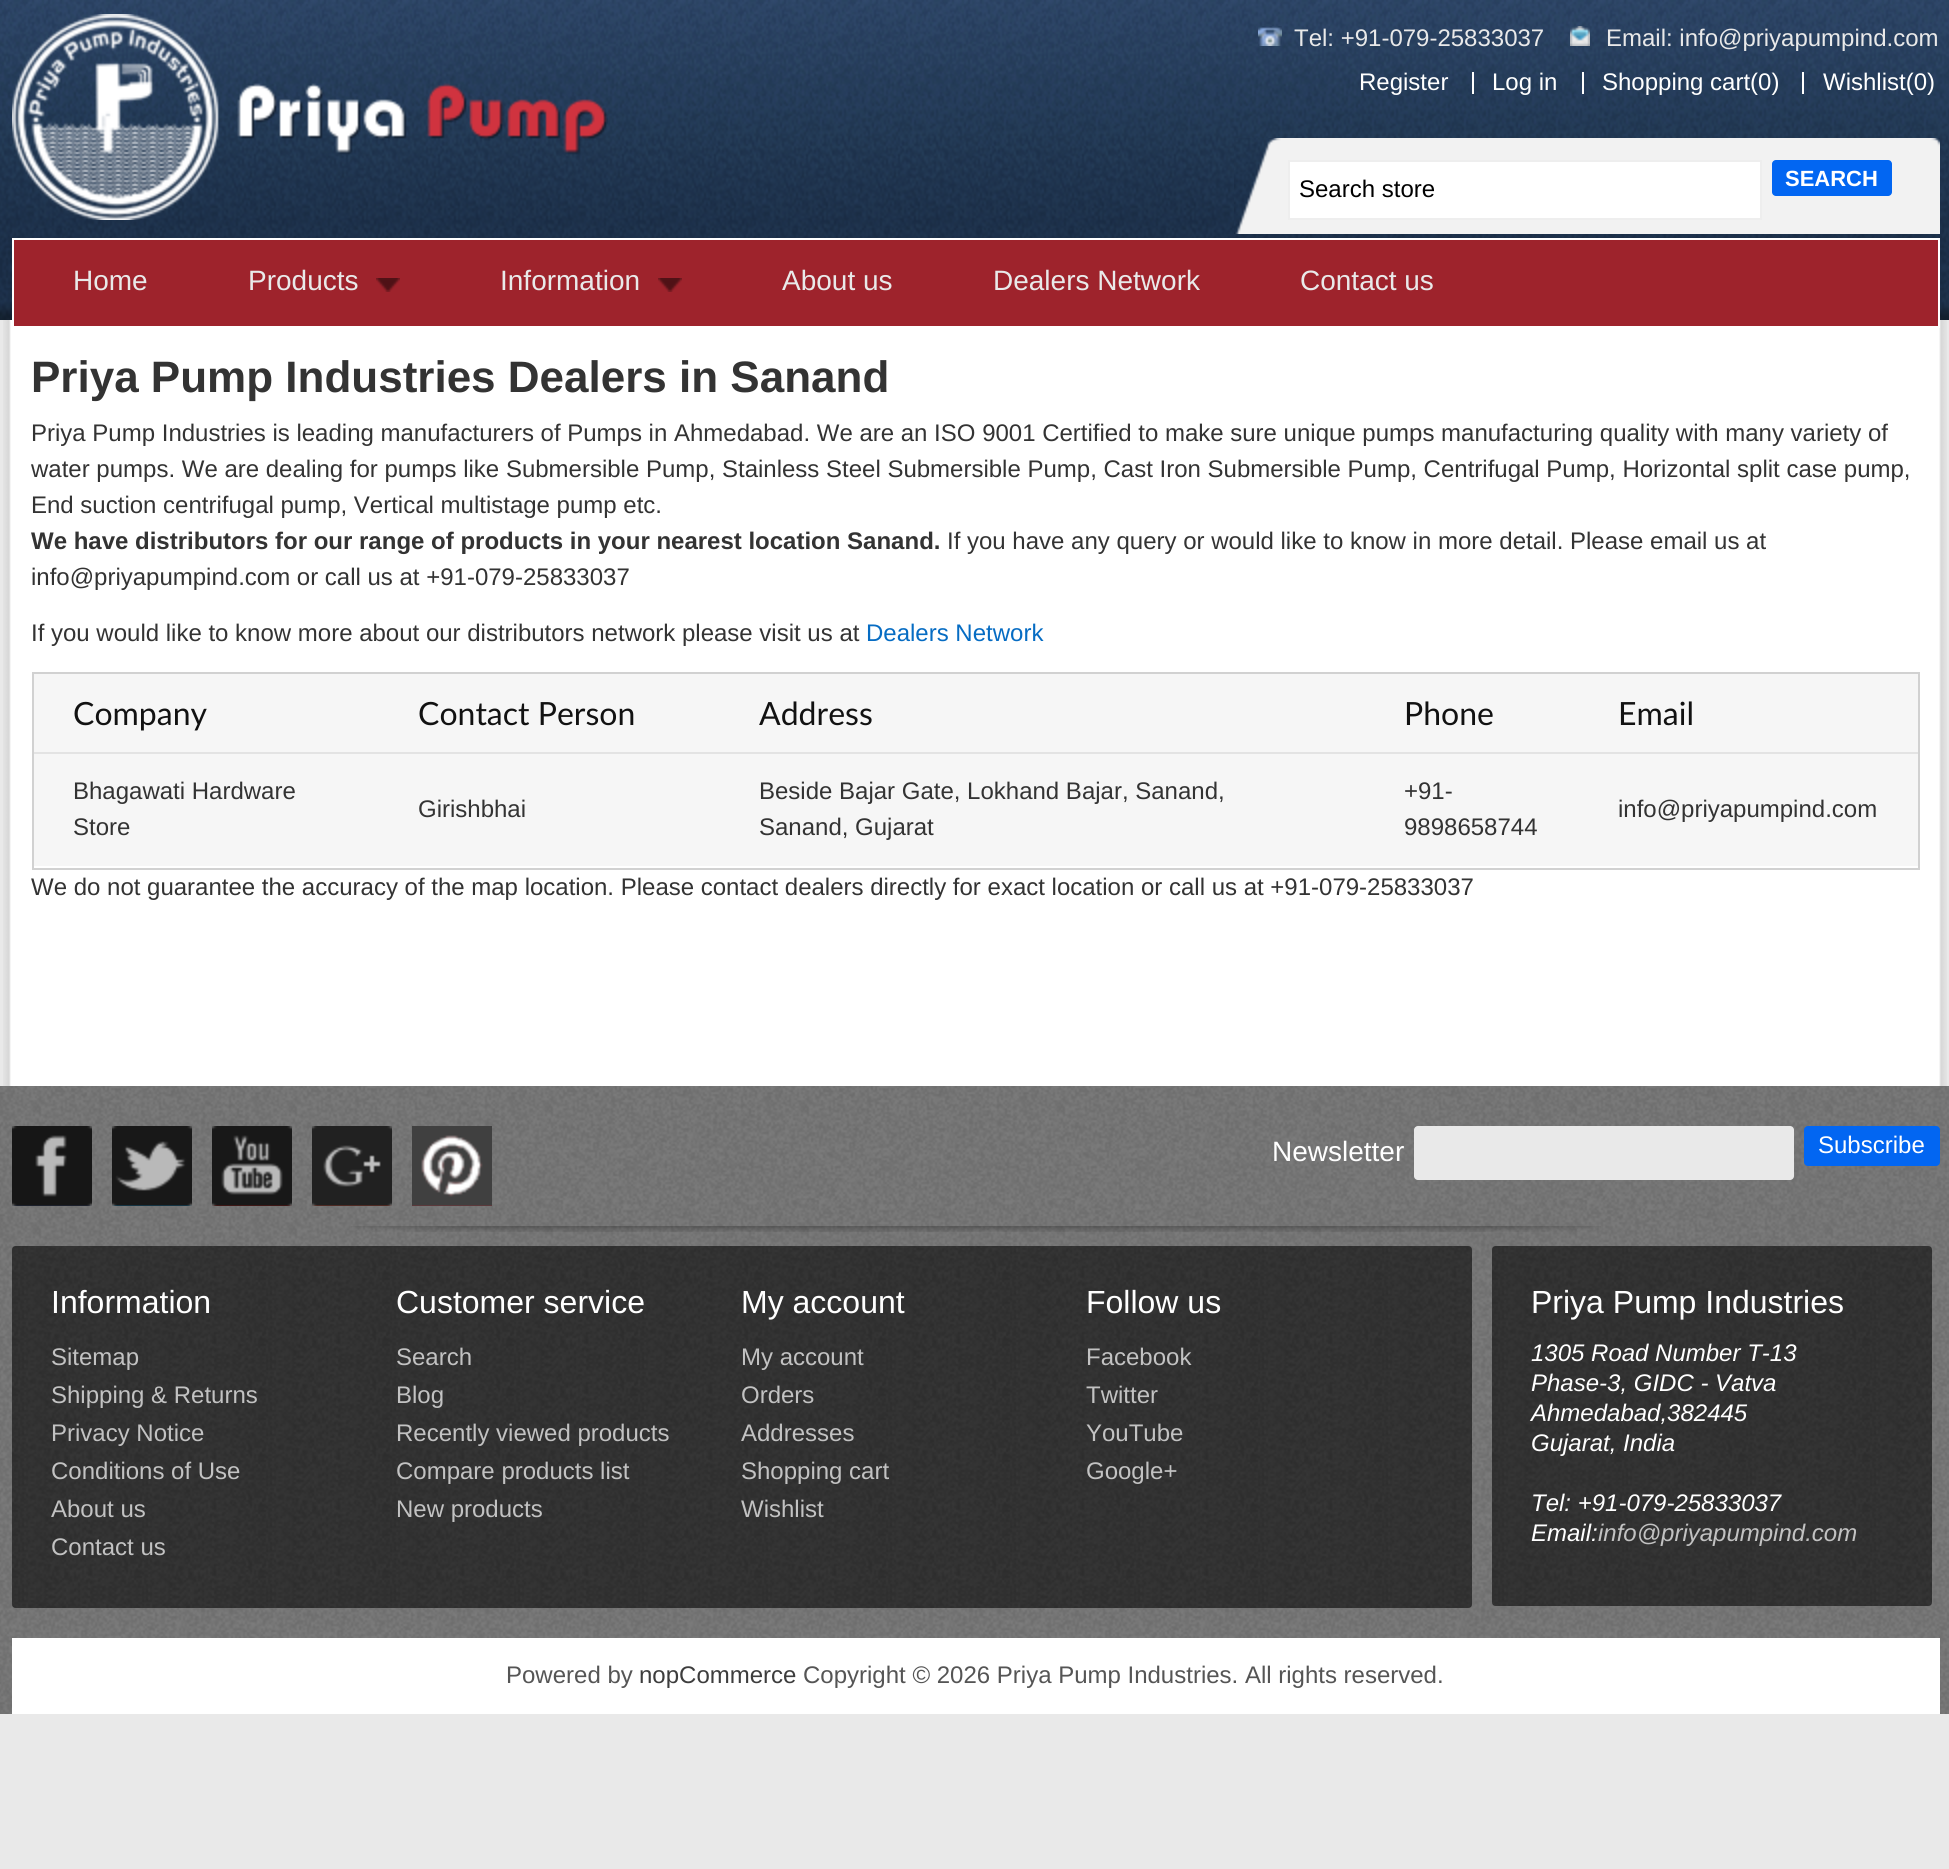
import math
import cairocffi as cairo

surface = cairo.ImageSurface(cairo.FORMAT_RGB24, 1949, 1869)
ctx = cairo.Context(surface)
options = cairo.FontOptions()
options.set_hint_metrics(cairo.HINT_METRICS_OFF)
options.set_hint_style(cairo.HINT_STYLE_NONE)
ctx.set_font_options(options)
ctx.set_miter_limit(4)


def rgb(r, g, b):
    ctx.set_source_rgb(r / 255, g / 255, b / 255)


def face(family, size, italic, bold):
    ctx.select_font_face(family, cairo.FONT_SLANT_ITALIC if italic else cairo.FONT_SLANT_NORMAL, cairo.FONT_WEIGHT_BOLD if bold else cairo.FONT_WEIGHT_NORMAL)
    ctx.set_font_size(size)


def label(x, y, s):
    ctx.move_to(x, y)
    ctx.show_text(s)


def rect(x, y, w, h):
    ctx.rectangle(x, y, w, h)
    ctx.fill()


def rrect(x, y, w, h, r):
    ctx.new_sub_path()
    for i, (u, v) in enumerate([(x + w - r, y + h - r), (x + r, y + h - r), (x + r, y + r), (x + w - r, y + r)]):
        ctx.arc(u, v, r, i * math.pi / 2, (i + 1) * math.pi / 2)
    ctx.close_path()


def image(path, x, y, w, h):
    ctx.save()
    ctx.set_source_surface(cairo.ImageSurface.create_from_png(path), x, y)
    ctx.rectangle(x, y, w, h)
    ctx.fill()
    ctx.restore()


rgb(233, 233, 233)
ctx.paint()
image('image0.png', 0, 0, 1949, 320)
image('image1.png', 12, 14, 596, 206)
image('image2.png', 1258, 26, 24, 20)
face('Liberation Sans', 24, 0, 0)
rgb(233, 233, 233)
label(1294, 46, 'Tel: +91-079-25833037')
image('image3.png', 1570, 26, 20, 20)
label(1606, 46, 'Email: info@priyapumpind.com')
rgb(255, 255, 255)
label(1359, 90, 'Register')
rect(1472, 72, 2, 22)
label(1492, 90, 'Log in')
rect(1582, 72, 2, 22)
label(1602, 90, 'Shopping cart(0)')
rect(1802, 72, 2, 22)
label(1823, 90, 'Wishlist(0)')
image('image4.png', 1234, 138, 706, 96)
ctx.rectangle(1289, 161, 472, 58)
ctx.fill_preserve()
rgb(238, 238, 238)
ctx.stroke()
rgb(0, 0, 0)
label(1299, 197, 'Search store')
rgb(2, 102, 242)
rrect(1772, 160, 120, 36, 4)
ctx.fill()
face('Liberation Sans', 22, 0, 1)
rgb(255, 255, 255)
label(1785, 186, 'SEARCH')
image('image6.png', 3, 320, 1944, 766)
rgb(158, 35, 44)
ctx.rectangle(13, 239, 1926, 88)
ctx.fill_preserve()
rgb(255, 255, 255)
ctx.stroke()
face('Liberation Sans', 28, 0, 0)
rgb(233, 233, 233)
label(73, 290, 'Home')
image('image5.png', 376, 278, 24, 14)
label(248, 290, 'Products')
image('image5.png', 658, 278, 24, 14)
label(500, 290, 'Information')
label(782, 290, 'About us')
label(993, 290, 'Dealers Network')
label(1300, 290, 'Contact us')
face('Liberation Sans', 44, 0, 1)
rgb(51, 51, 51)
label(31, 392, 'Priya Pump Industries Dealers in Sanand')
face('Liberation Sans', 24, 0, 0)
label(31, 441, 'Priya Pump Industries is leading manufacturers of Pumps in Ahmedabad. We are an ISO 9001 Certified to make sure unique pumps manufacturing quality with many variety of')
label(31, 477, 'water pumps. We are dealing for pumps like Submersible Pump, Stainless Steel Submersible Pump, Cast Iron Submersible Pump, Centrifugal Pump, Horizontal split case pump,')
label(31, 513, 'End suction centrifugal pump, Vertical multistage pump etc.')
face('Liberation Sans', 24, 0, 1)
label(31, 549, 'We have distributors for our range of products in your nearest location Sanand.')
face('Liberation Sans', 24, 0, 0)
label(947, 549, 'If you have any query or would like to know in more detail. Please email us at')
label(31, 585, 'info@priyapumpind.com or call us at +91-079-25833037')
label(31, 641, 'If you would like to know more about our distributors network please visit us at')
rgb(6, 108, 195)
label(866, 641, 'Dealers Network')
ctx.rectangle(33, 673, 1886, 196)
rgb(209, 209, 209)
ctx.stroke()
rgb(246, 246, 246)
rect(34, 674, 1884, 78)
face('Lato', 32, 0, 0)
rgb(18, 18, 18)
label(73, 725, 'Company')
label(418, 725, 'Contact Person')
label(759, 725, 'Address')
label(1404, 725, 'Phone')
label(1618, 725, 'Email')
rgb(246, 246, 246)
rect(34, 754, 1884, 112)
rgb(227, 227, 227)
rect(34, 752, 1884, 2)
face('Liberation Sans', 24, 0, 0)
rgb(51, 51, 51)
label(73, 799, 'Bhagawati Hardware')
label(73, 835, 'Store')
label(418, 817, 'Girishbhai')
label(759, 799, 'Beside Bajar Gate, Lokhand Bajar, Sanand,')
label(759, 835, 'Sanand, Gujarat')
label(1404, 799, '+91-')
label(1404, 835, '9898658744')
label(1618, 817, 'info@priyapumpind.com')
label(31, 895, 'We do not guarantee the accuracy of the map location. Please contact dealers directly for exact location or call us at +91-079-25833037')
image('image7.png', 0, 1086, 1949, 628)
image('image8.png', 351, 1226, 1250, 6)
image('image9.png', 351, 1226, 1250, 6)
image('image10.png', 12, 1126, 80, 80)
image('image11.png', 112, 1126, 80, 80)
image('image12.png', 212, 1126, 80, 80)
image('image13.png', 312, 1126, 80, 80)
image('image14.png', 412, 1126, 80, 80)
face('Liberation Sans', 28, 0, 0)
rgb(255, 255, 255)
label(1272, 1161, 'Newsletter')
rgb(233, 233, 233)
rrect(1414, 1126, 380, 54, 4)
ctx.fill()
rgb(2, 102, 242)
rrect(1804, 1126, 136, 40, 4)
ctx.fill()
face('Liberation Sans', 24, 0, 0)
rgb(255, 255, 255)
label(1818, 1153, 'Subscribe')
image('image15.png', 12, 1246, 1460, 362)
face('Liberation Sans', 32, 0, 0)
label(51, 1313, 'Information')
face('Liberation Sans', 24, 0, 0)
rgb(194, 194, 194)
label(51, 1365, 'Sitemap')
label(51, 1403, 'Shipping & Returns')
label(51, 1441, 'Privacy Notice')
label(51, 1479, 'Conditions of Use')
label(51, 1517, 'About us')
label(51, 1555, 'Contact us')
face('Liberation Sans', 32, 0, 0)
rgb(255, 255, 255)
label(396, 1313, 'Customer service')
face('Liberation Sans', 24, 0, 0)
rgb(194, 194, 194)
label(396, 1365, 'Search')
label(396, 1403, 'Blog')
label(396, 1441, 'Recently viewed products')
label(396, 1479, 'Compare products list')
label(396, 1517, 'New products')
face('Liberation Sans', 32, 0, 0)
rgb(255, 255, 255)
label(741, 1313, 'My account')
face('Liberation Sans', 24, 0, 0)
rgb(194, 194, 194)
label(741, 1365, 'My account')
label(741, 1403, 'Orders')
label(741, 1441, 'Addresses')
label(741, 1479, 'Shopping cart')
label(741, 1517, 'Wishlist')
face('Liberation Sans', 32, 0, 0)
rgb(255, 255, 255)
label(1086, 1313, 'Follow us')
face('Liberation Sans', 24, 0, 0)
rgb(194, 194, 194)
label(1086, 1365, 'Facebook')
label(1086, 1403, 'Twitter')
label(1086, 1441, 'YouTube')
label(1086, 1479, 'Google+')
image('image16.png', 1492, 1246, 440, 360)
face('Liberation Sans', 32, 0, 0)
rgb(255, 255, 255)
label(1531, 1313, 'Priya Pump Industries')
face('Liberation Sans', 24, 1, 0)
label(1531, 1361, '1305 Road Number T-13')
label(1531, 1391, 'Phase-3, GIDC - Vatva')
label(1531, 1421, 'Ahmedabad,382445')
label(1531, 1451, 'Gujarat, India')
label(1531, 1511, 'Tel: +91-079-25833037')
label(1531, 1541, 'Email:')
rgb(194, 194, 194)
label(1598, 1541, 'info@priyapumpind.com')
rgb(255, 255, 255)
rect(12, 1638, 1928, 76)
face('Liberation Sans', 24, 0, 0)
rgb(85, 85, 85)
label(506, 1683, 'Powered by')
rgb(61, 61, 61)
label(639, 1683, 'nopCommerce')
rgb(85, 85, 85)
label(803, 1683, 'Copyright © 2026 Priya Pump Industries. All rights reserved.')
surface.write_to_png('render.png')
